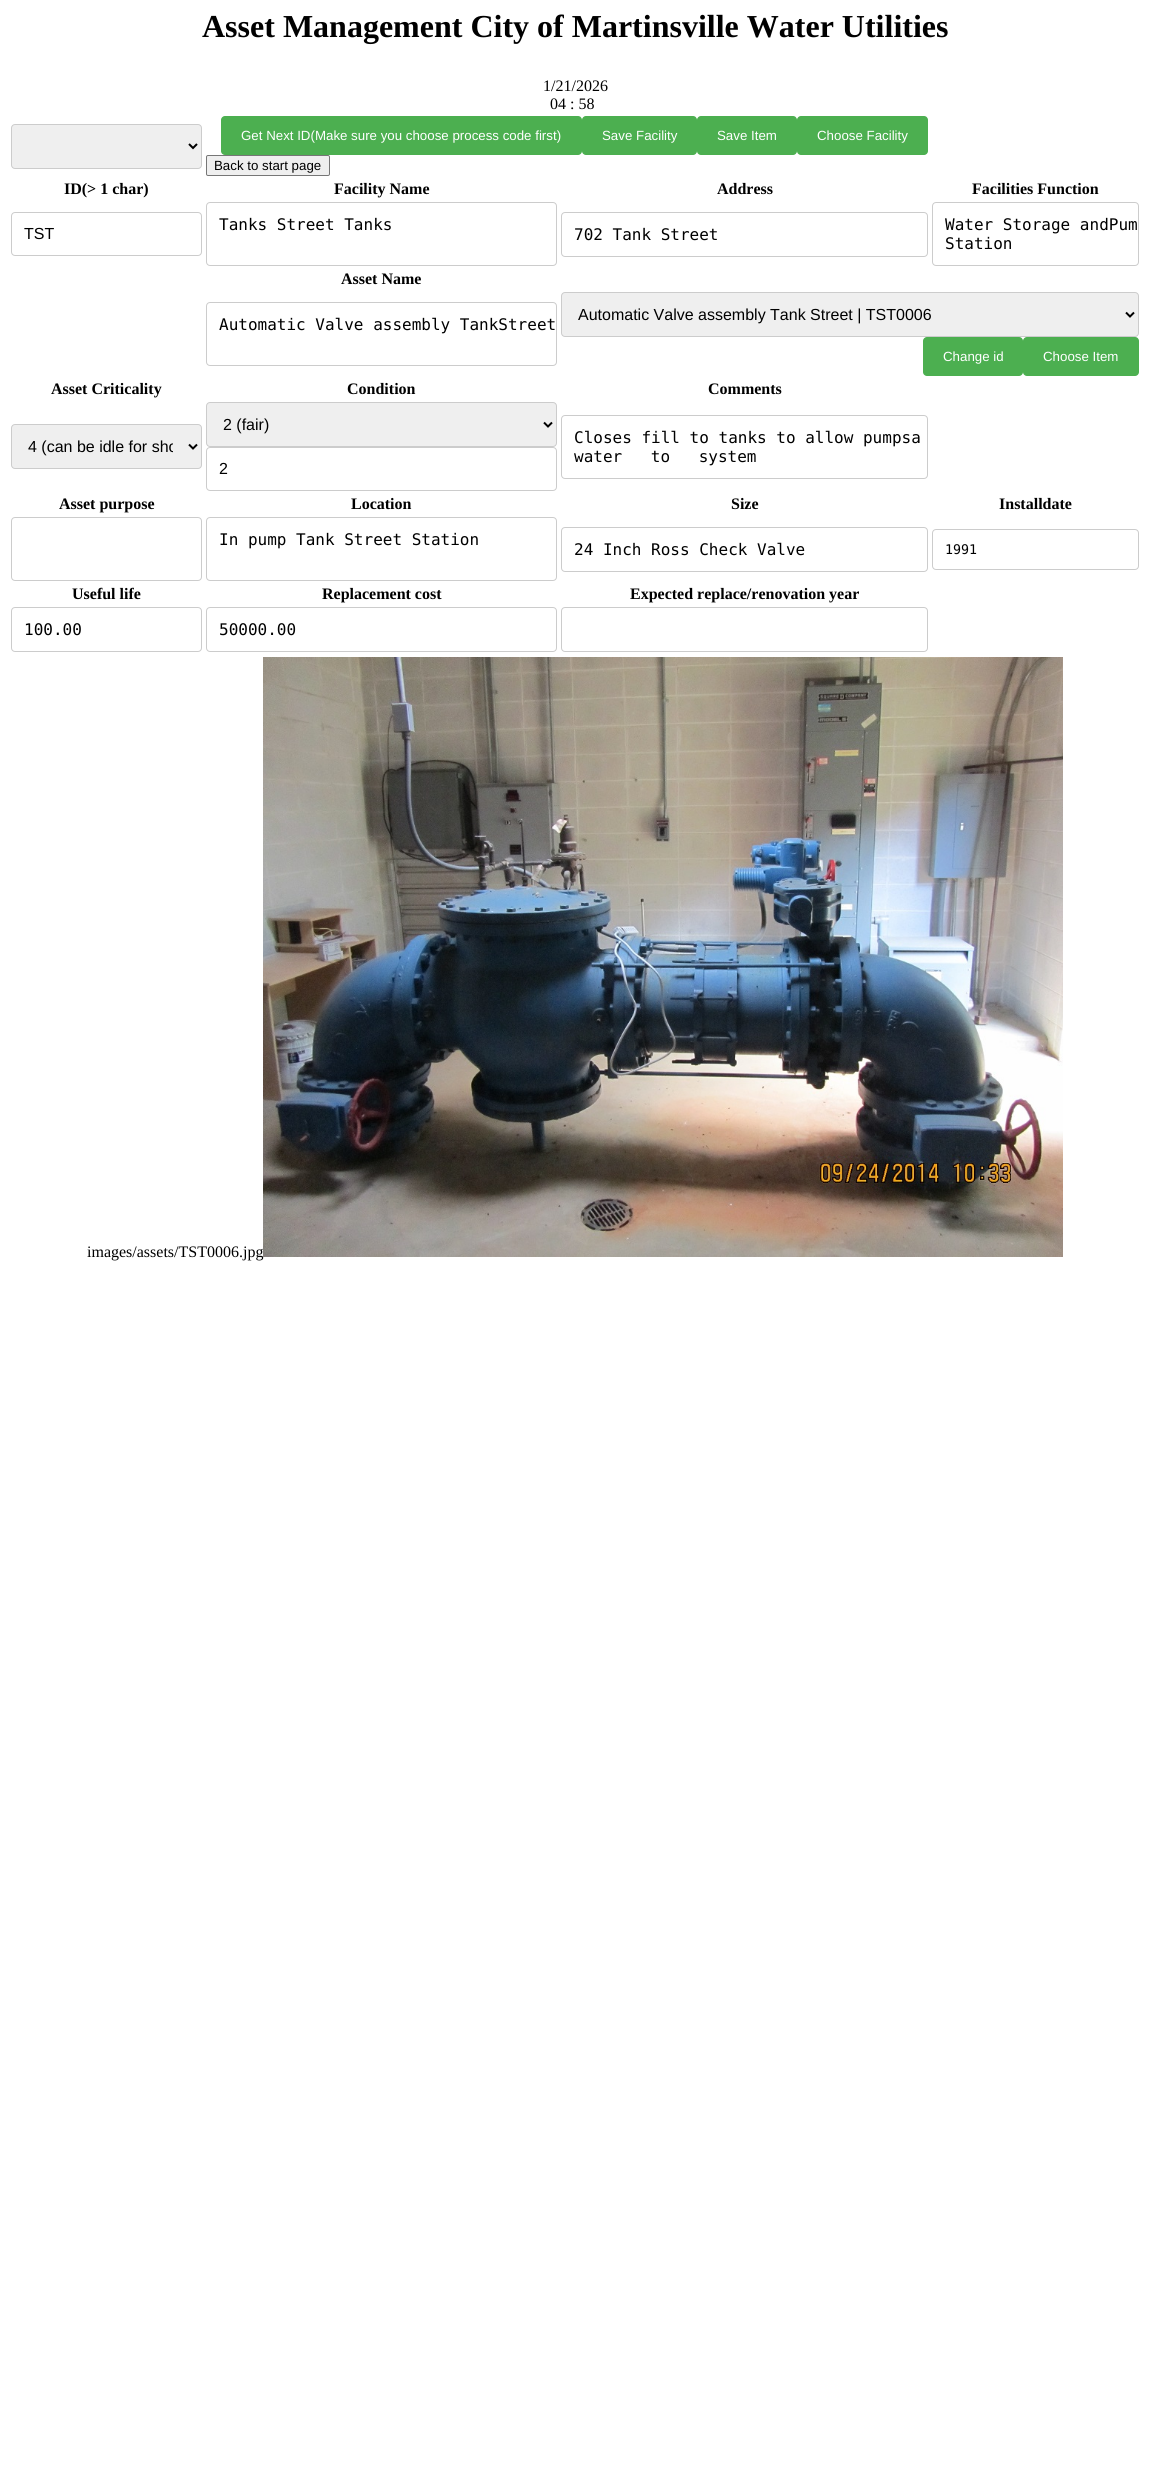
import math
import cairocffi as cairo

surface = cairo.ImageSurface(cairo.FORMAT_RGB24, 1150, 2490)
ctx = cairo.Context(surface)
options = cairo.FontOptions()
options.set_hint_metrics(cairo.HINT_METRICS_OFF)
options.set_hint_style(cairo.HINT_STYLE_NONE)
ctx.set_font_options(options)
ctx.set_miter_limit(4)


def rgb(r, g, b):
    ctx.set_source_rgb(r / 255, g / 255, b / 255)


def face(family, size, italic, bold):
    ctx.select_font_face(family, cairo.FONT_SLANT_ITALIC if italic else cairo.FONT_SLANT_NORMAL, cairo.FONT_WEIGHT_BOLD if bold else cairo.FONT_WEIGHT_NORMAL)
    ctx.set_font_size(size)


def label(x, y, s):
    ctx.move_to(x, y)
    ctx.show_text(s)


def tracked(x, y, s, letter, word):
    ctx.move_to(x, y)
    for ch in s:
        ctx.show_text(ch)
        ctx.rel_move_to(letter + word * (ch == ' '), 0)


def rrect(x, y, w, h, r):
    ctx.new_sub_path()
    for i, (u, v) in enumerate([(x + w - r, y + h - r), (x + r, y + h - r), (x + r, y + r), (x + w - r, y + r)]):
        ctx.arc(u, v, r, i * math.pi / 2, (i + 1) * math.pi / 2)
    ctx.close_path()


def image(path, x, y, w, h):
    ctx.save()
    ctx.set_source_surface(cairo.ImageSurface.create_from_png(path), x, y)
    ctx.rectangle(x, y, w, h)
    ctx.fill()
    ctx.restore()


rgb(255, 255, 255)
ctx.paint()
face('Liberation Serif', 32, 0, 1)
rgb(0, 0, 0)
label(202, 37, 'Asset Management City of Martinsville Water Utilities')
face('Liberation Serif', 16, 0, 0)
label(543, 91, '1/21/2026')
label(550, 109, '04 : 58')
rgb(239, 239, 239)
rrect(11.5, 124.5, 190, 44, 3.5)
ctx.fill_preserve()
rgb(204, 204, 204)
ctx.set_line_width(1)
ctx.stroke()
ctx.new_path()
ctx.move_to(189, 144)
ctx.line_to(193, 148)
ctx.line_to(197, 144)
rgb(0, 0, 0)
ctx.set_line_width(2)
ctx.stroke()
rgb(76, 175, 80)
rrect(221, 116, 361, 39, 4)
ctx.fill()
face('Liberation Sans', 13.3, 0, 0)
rgb(255, 255, 255)
label(241, 140, 'Get Next ID(Make sure you choose process code first)')
rgb(76, 175, 80)
rrect(582, 116, 115, 39, 4)
ctx.fill()
rgb(255, 255, 255)
label(602, 140, 'Save Facility')
rgb(76, 175, 80)
rrect(697, 116, 100, 39, 4)
ctx.fill()
rgb(255, 255, 255)
label(717, 140, 'Save Item')
rgb(76, 175, 80)
rrect(797, 116, 131, 39, 4)
ctx.fill()
rgb(255, 255, 255)
label(817, 140, 'Choose Facility')
rgb(239, 239, 239)
rrect(206.5, 155.5, 123, 20, 1.5)
ctx.fill_preserve()
rgb(118, 118, 118)
ctx.set_line_width(1)
ctx.stroke()
rgb(0, 0, 0)
label(214, 170, 'Back to start page')
face('Liberation Serif', 16, 0, 1)
label(64, 194, 'ID(> 1 char)')
label(334, 194, 'Facility Name')
label(717, 194, 'Address')
label(972, 194, 'Facilities Function')
rrect(11.5, 212.5, 190, 43, 3.5)
rgb(204, 204, 204)
ctx.stroke()
face('Liberation Sans', 16, 0, 0)
rgb(0, 0, 0)
label(24, 239, 'TST')
rrect(206.5, 202.5, 350, 63, 3.5)
rgb(204, 204, 204)
ctx.stroke()
face('DejaVu Sans Mono', 16, 0, 0)
rgb(0, 0, 0)
label(219, 230, 'Tanks Street Tanks')
rrect(561.5, 212.5, 366, 44, 3.5)
rgb(204, 204, 204)
ctx.stroke()
rgb(0, 0, 0)
label(574, 240, '702 Tank Street')
rrect(932.5, 202.5, 206, 63, 3.5)
rgb(204, 204, 204)
ctx.stroke()
rgb(0, 0, 0)
label(945, 230, 'Water Storage andPum')
label(945, 249, 'Station')
face('Liberation Serif', 16, 0, 1)
label(341, 284, 'Asset Name')
rrect(206.5, 302.5, 350, 63, 3.5)
rgb(204, 204, 204)
ctx.stroke()
face('DejaVu Sans Mono', 16, 0, 0)
rgb(0, 0, 0)
label(219, 330, 'Automatic Valve assembly TankStreet')
rgb(239, 239, 239)
rrect(561.5, 292.5, 577, 44, 3.5)
ctx.fill_preserve()
rgb(204, 204, 204)
ctx.stroke()
ctx.new_path()
ctx.move_to(1126, 312.5)
ctx.line_to(1130, 316.5)
ctx.line_to(1134, 312.5)
rgb(0, 0, 0)
ctx.set_line_width(2)
ctx.stroke()
face('Liberation Sans', 16, 0, 0)
label(578, 320, 'Automatic Valve assembly Tank Street | TST0006')
rgb(76, 175, 80)
rrect(923, 337, 100, 39, 4)
ctx.fill()
face('Liberation Sans', 13.3, 0, 0)
rgb(255, 255, 255)
label(943, 361, 'Change id')
rgb(76, 175, 80)
rrect(1023, 337, 116, 39, 4)
ctx.fill()
rgb(255, 255, 255)
label(1043, 361, 'Choose Item')
face('Liberation Serif', 16, 0, 1)
rgb(0, 0, 0)
label(51, 394, 'Asset Criticality')
label(347, 394, 'Condition')
label(708, 394, 'Comments')
rgb(239, 239, 239)
rrect(11.5, 424.5, 190, 44, 3.5)
ctx.fill_preserve()
rgb(204, 204, 204)
ctx.set_line_width(1)
ctx.stroke()
ctx.new_path()
ctx.move_to(189, 444.5)
ctx.line_to(193, 448.5)
ctx.line_to(197, 444.5)
rgb(0, 0, 0)
ctx.set_line_width(2)
ctx.stroke()
ctx.save()
ctx.rectangle(28, 437, 145, 19)
ctx.clip()
face('Liberation Sans', 16, 0, 0)
label(28, 452, '4 (can be idle for sho')
ctx.restore()
rgb(239, 239, 239)
rrect(206.5, 402.5, 350, 44, 3.5)
ctx.fill_preserve()
rgb(204, 204, 204)
ctx.set_line_width(1)
ctx.stroke()
ctx.new_path()
ctx.move_to(544, 422.5)
ctx.line_to(548, 426.5)
ctx.line_to(552, 422.5)
rgb(0, 0, 0)
ctx.set_line_width(2)
ctx.stroke()
face('Liberation Sans', 16, 0, 0)
label(223, 430, '2 (fair)')
rrect(206.5, 447.5, 350, 43, 3.5)
rgb(204, 204, 204)
ctx.set_line_width(1)
ctx.stroke()
rgb(0, 0, 0)
label(219, 474, '2')
rrect(561.5, 415.5, 366, 63, 3.5)
rgb(204, 204, 204)
ctx.stroke()
face('DejaVu Sans Mono', 16, 0, 0)
rgb(0, 0, 0)
label(574, 443, 'Closes fill to tanks to allow pumpsa')
tracked(574, 462, 'water to system', 0, 19)
face('Liberation Serif', 16, 0, 1)
label(59, 509, 'Asset purpose')
label(351, 509, 'Location')
label(731, 509, 'Size')
label(999, 509, 'Installdate')
rrect(11.5, 517.5, 190, 63, 3.5)
rgb(204, 204, 204)
ctx.stroke()
rrect(206.5, 517.5, 350, 63, 3.5)
ctx.stroke()
face('DejaVu Sans Mono', 16, 0, 0)
rgb(0, 0, 0)
label(219, 545, 'In pump Tank Street Station')
rrect(561.5, 527.5, 366, 44, 3.5)
rgb(204, 204, 204)
ctx.stroke()
rgb(0, 0, 0)
label(574, 555, '24 Inch Ross Check Valve')
rrect(932.5, 529.5, 206, 40, 3.5)
rgb(204, 204, 204)
ctx.stroke()
face('DejaVu Sans Mono', 13.3, 0, 0)
rgb(0, 0, 0)
label(945, 554, '1991')
face('Liberation Serif', 16, 0, 1)
label(72, 599, 'Useful life')
label(322, 599, 'Replacement cost')
label(630, 599, 'Expected replace/renovation year')
rrect(11.5, 607.5, 190, 44, 3.5)
rgb(204, 204, 204)
ctx.stroke()
face('DejaVu Sans Mono', 16, 0, 0)
rgb(0, 0, 0)
label(24, 635, '100.00')
rrect(206.5, 607.5, 350, 44, 3.5)
rgb(204, 204, 204)
ctx.stroke()
rgb(0, 0, 0)
label(219, 635, '50000.00')
rrect(561.5, 607.5, 366, 44, 3.5)
rgb(204, 204, 204)
ctx.stroke()
face('Liberation Serif', 16, 0, 0)
rgb(0, 0, 0)
label(87, 1257, 'images/assets/TST0006.jpg')
image('image0.png', 263, 657, 800, 600)
surface.write_to_png('render.png')
